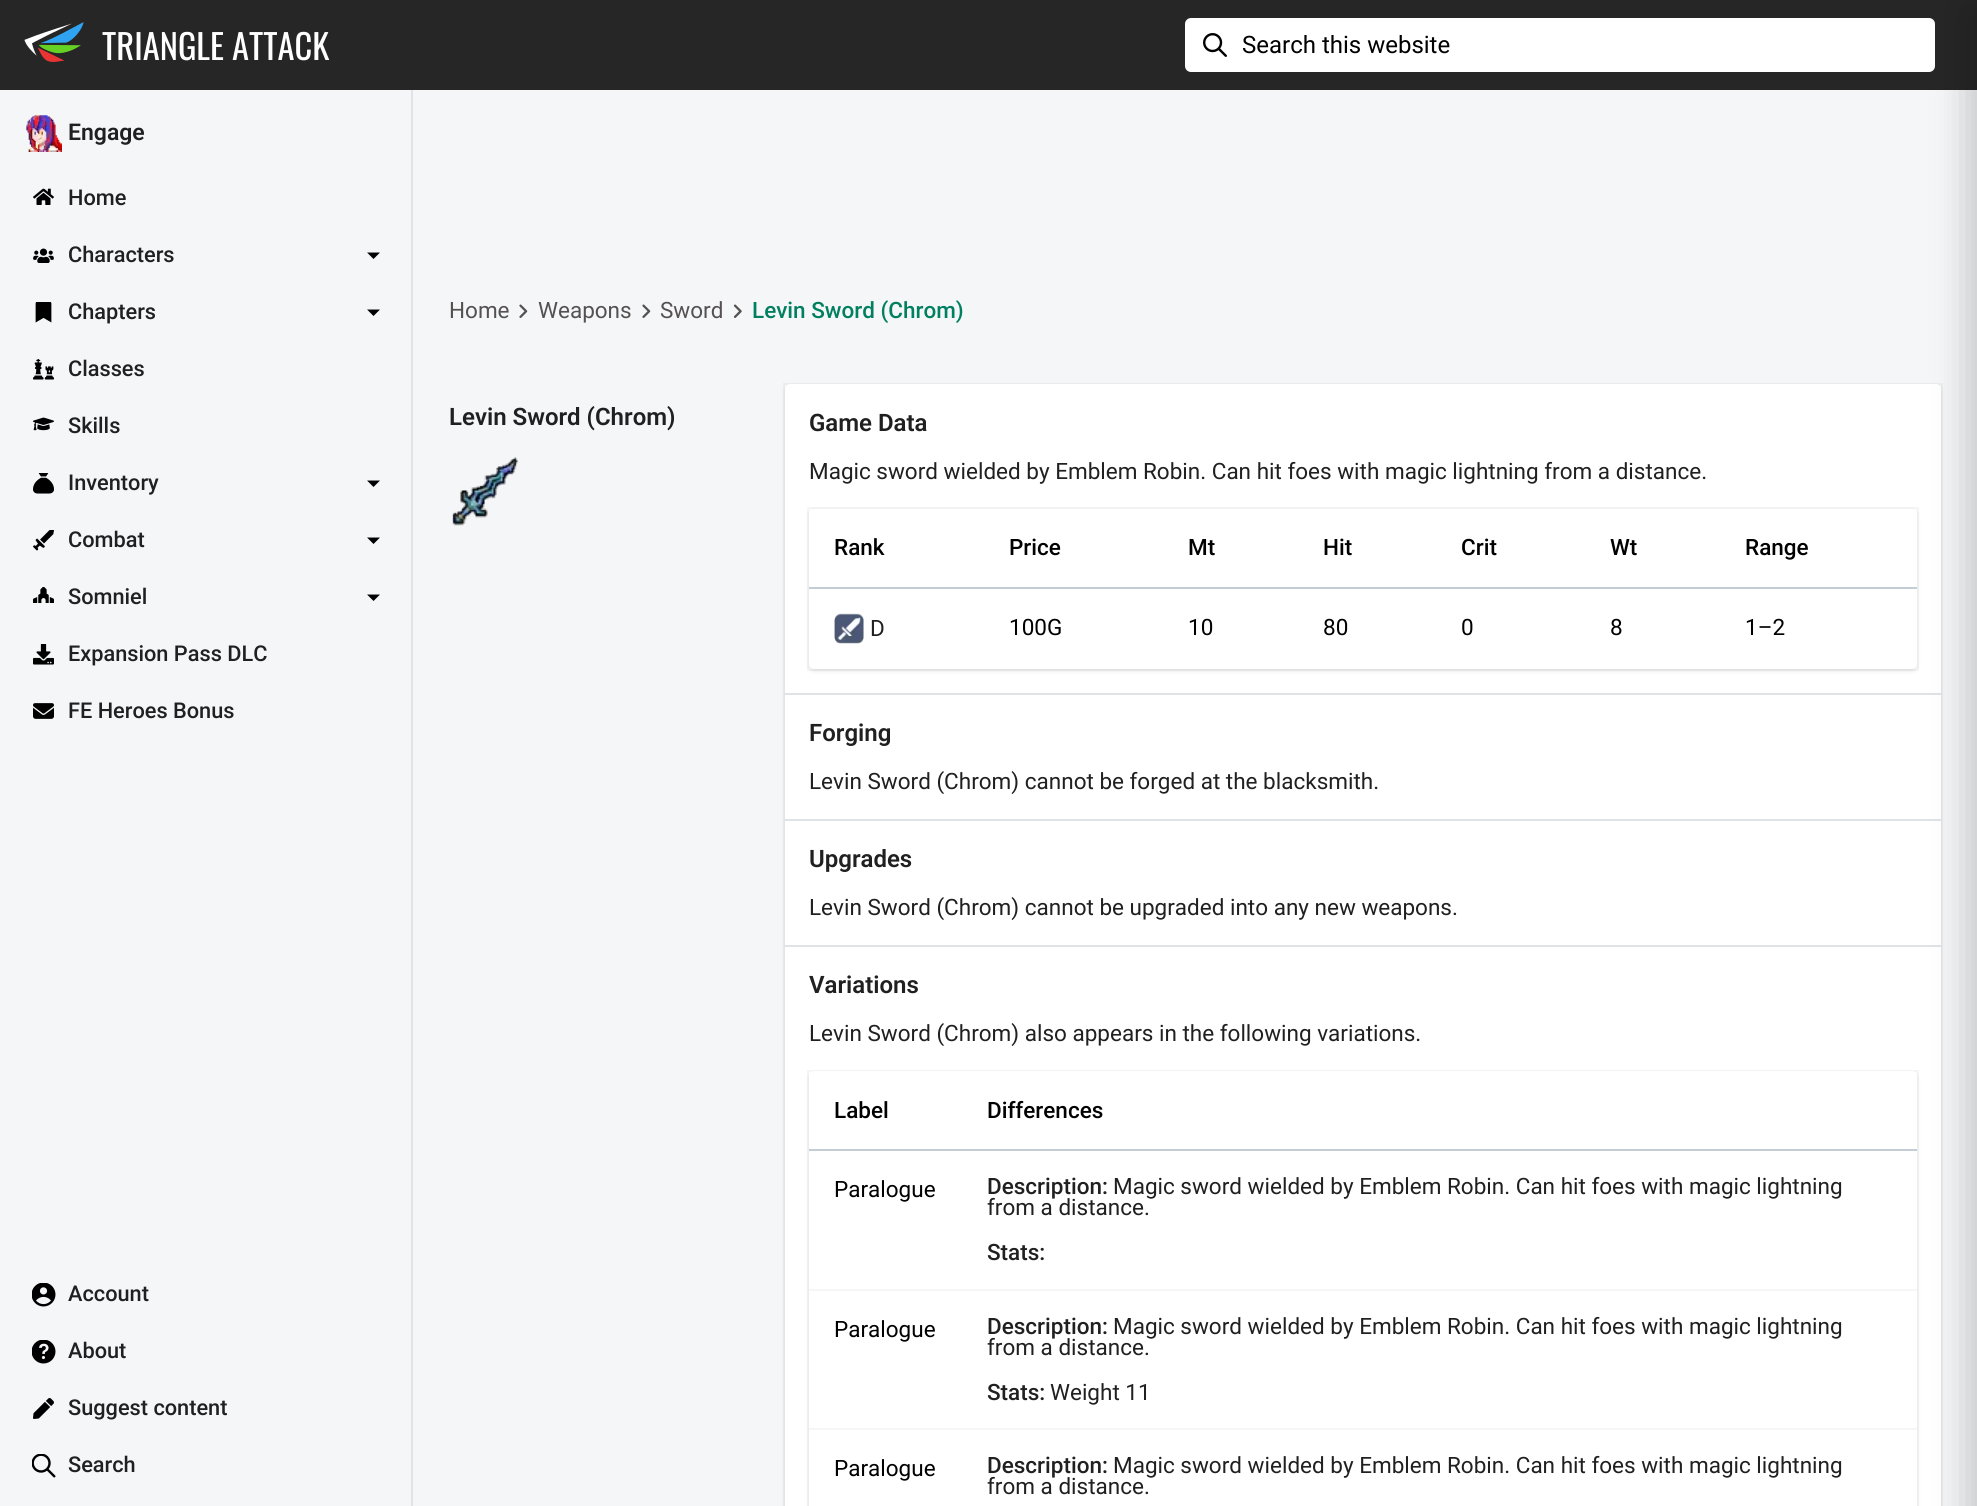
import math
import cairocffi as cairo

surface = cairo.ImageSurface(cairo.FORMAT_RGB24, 1977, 1506)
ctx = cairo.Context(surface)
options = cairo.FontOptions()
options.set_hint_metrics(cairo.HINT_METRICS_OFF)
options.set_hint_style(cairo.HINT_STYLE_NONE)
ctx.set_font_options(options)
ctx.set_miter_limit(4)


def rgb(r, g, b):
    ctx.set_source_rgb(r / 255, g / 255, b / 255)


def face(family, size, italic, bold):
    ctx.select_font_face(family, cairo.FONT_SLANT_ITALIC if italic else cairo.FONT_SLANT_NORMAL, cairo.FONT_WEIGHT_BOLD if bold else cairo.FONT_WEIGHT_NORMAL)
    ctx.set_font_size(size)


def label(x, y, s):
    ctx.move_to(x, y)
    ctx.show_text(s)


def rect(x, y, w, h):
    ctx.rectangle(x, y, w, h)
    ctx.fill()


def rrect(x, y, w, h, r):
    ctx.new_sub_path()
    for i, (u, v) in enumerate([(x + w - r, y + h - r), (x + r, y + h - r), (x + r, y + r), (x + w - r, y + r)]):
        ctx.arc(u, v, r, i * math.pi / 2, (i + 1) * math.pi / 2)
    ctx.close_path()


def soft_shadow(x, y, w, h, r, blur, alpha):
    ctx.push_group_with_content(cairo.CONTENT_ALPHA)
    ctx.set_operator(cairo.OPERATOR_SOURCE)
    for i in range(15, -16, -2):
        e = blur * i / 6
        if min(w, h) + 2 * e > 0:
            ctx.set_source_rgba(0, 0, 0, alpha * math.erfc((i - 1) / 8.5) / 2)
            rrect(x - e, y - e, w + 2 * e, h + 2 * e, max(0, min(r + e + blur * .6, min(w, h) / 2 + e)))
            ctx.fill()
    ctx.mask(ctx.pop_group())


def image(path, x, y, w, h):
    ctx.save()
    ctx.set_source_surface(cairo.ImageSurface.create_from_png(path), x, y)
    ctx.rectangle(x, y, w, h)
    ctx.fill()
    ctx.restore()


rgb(244, 246, 248)
ctx.paint()
rgb(38, 38, 38)
rect(0, 0, 1977, 90)
image('image0.png', 24, 22, 60, 40)
face('Oswald', 34.5, 0, 0)
rgb(255, 255, 255)
label(102, 60, 'TRIANGLE ATTACK')
rrect(1185, 18, 750, 54, 6)
ctx.fill()
image('image1.png', 1203, 33, 24, 24)
face('Roboto', 24, 0, 0)
rgb(0, 0, 0)
label(1242, 53, 'Search this website')
rgb(63, 63, 68)
soft_shadow(785, 386, 1156, 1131, 5, 2, 0.15)
ctx.rectangle(784, 384, 1158, 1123)
ctx.set_source_rgba(0.247, 0.247, 0.267, 0.05)
ctx.stroke()
rgb(255, 255, 255)
rrect(785, 384, 1156, 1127, 5)
ctx.fill()
rgb(223, 227, 232)
rect(785, 693, 1156, 2)
rgb(63, 63, 68)
soft_shadow(809, 510, 1108, 161, 5, 2, 0.15)
ctx.rectangle(808, 508, 1110, 162)
ctx.set_source_rgba(0.247, 0.247, 0.267, 0.05)
ctx.stroke()
rgb(255, 255, 255)
rrect(809, 509, 1108, 160, 5)
ctx.fill()
rgb(196, 205, 213)
rect(809, 587, 1108, 2)
rgb(223, 227, 232)
rect(785, 819, 1156, 2)
rect(785, 945, 1156, 2)
rgb(63, 63, 68)
soft_shadow(809, 1073, 1108, 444, 5, 2, 0.15)
ctx.rectangle(808, 1071, 1110, 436)
ctx.set_source_rgba(0.247, 0.247, 0.267, 0.05)
ctx.stroke()
rgb(255, 255, 255)
rrect(809, 1071, 1108, 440, 5)
ctx.fill()
rgb(196, 205, 213)
rect(809, 1149, 1108, 2)
rgb(244, 246, 248)
rect(809, 1289, 1108, 2)
rect(809, 1428, 1108, 2)
rgb(0, 0, 0)
soft_shadow(1970, 2, 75, 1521, 0, 22.5, 0.12)
soft_shadow(1974, 21, 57, 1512, 0, 18, 0.14)
rgb(223, 227, 232)
rect(411, 90, 2, 1416)
image('image2.png', 26, 115, 36, 37)
face('Roboto SemiBold', 23, 0, 0)
rgb(32, 32, 32)
label(68, 140, 'Engage')
image('image3.png', 33, 188, 21, 17)
face('Roboto Medium', 21.75, 0, 0)
label(68, 205, 'Home')
image('image4.png', 33, 248, 21, 15)
label(68, 262, 'Characters')
rgb(0, 0, 0)
ctx.new_path()
ctx.move_to(367, 252.5)
ctx.line_to(373.5, 259)
ctx.line_to(380, 252.5)
ctx.close_path()
ctx.fill()
image('image5.png', 35, 302, 17, 21)
rgb(32, 32, 32)
label(68, 319, 'Chapters')
rgb(0, 0, 0)
ctx.new_path()
ctx.move_to(367, 309.5)
ctx.line_to(373.5, 316)
ctx.line_to(380, 309.5)
ctx.close_path()
ctx.fill()
image('image6.png', 33, 359, 21, 21)
rgb(32, 32, 32)
label(68, 376, 'Classes')
image('image7.png', 33, 417, 21, 14)
label(68, 433, 'Skills')
image('image8.png', 33, 473, 21, 21)
label(68, 490, 'Inventory')
rgb(0, 0, 0)
ctx.new_path()
ctx.move_to(367, 480.5)
ctx.line_to(373.5, 487)
ctx.line_to(380, 480.5)
ctx.close_path()
ctx.fill()
image('image9.png', 33, 530, 21, 21)
rgb(32, 32, 32)
label(68, 547, 'Combat')
rgb(0, 0, 0)
ctx.new_path()
ctx.move_to(367, 537.5)
ctx.line_to(373.5, 544)
ctx.line_to(380, 537.5)
ctx.close_path()
ctx.fill()
image('image10.png', 33, 587, 21, 16)
rgb(32, 32, 32)
label(68, 604, 'Somniel')
rgb(0, 0, 0)
ctx.new_path()
ctx.move_to(367, 594.5)
ctx.line_to(373.5, 601)
ctx.line_to(380, 594.5)
ctx.close_path()
ctx.fill()
image('image11.png', 33, 644, 21, 21)
rgb(32, 32, 32)
label(68, 661, 'Expansion Pass DLC')
image('image12.png', 33, 703, 21, 16)
label(68, 718, 'FE Heroes Bonus')
image('image13.png', 32, 1283, 24, 24)
label(68, 1301, 'Account')
image('image14.png', 32, 1340, 24, 24)
label(68, 1358, 'About')
image('image15.png', 33, 1398, 21, 21)
label(68, 1415, 'Suggest content')
image('image16.png', 32, 1454, 24, 24)
label(68, 1472, 'Search')
face('Roboto', 22.5, 0, 0)
rgb(85, 81, 81)
label(449, 318, 'Home')
image('image17.png', 519, 304, 9, 14)
label(538, 318, 'Weapons')
image('image17.png', 642, 304, 9, 14)
label(660, 318, 'Sword')
image('image18.png', 733, 304, 9, 14)
face('Roboto Medium', 22.5, 0, 0)
rgb(0, 128, 96)
label(752, 318, 'Levin Sword (Chrom)')
face('Roboto SemiBold', 24, 0, 0)
rgb(32, 32, 32)
label(449, 425, 'Levin Sword (Chrom)')
image('image19.png', 452, 457, 66, 69)
label(809, 431, 'Game Data')
face('Roboto', 22.5, 0, 0)
label(809, 479, 'Magic sword wielded by Emblem Robin. Can hit foes with magic lightning from a distance.')
face('Roboto Medium', 22.5, 0, 0)
rgb(0, 0, 0)
label(834, 555, 'Rank')
label(1009, 555, 'Price')
label(1188, 555, 'Mt')
label(1323, 555, 'Hit')
label(1461, 555, 'Crit')
label(1610, 555, 'Wt')
label(1745, 555, 'Range')
image('image20.png', 834, 613, 30, 31)
face('Roboto', 22.5, 0, 0)
rgb(32, 32, 32)
label(870, 636, 'D')
rgb(0, 0, 0)
label(1009, 635, '100G')
label(1188, 635, '10')
label(1323, 635, '80')
label(1461, 635, '0')
label(1610, 635, '8')
label(1745, 635, '1–2')
face('Roboto SemiBold', 24, 0, 0)
rgb(32, 32, 32)
label(809, 741, 'Forging')
face('Roboto', 22.5, 0, 0)
label(809, 789, 'Levin Sword (Chrom) cannot be forged at the blacksmith.')
face('Roboto SemiBold', 24, 0, 0)
label(809, 867, 'Upgrades')
face('Roboto', 22.5, 0, 0)
label(809, 915, 'Levin Sword (Chrom) cannot be upgraded into any new weapons.')
face('Roboto SemiBold', 24, 0, 0)
label(809, 993, 'Variations')
face('Roboto', 22.5, 0, 0)
label(809, 1041, 'Levin Sword (Chrom) also appears in the following variations.')
face('Roboto Medium', 22.5, 0, 0)
rgb(0, 0, 0)
label(834, 1118, 'Label')
label(987, 1118, 'Differences')
face('Roboto', 22.5, 0, 0)
label(834, 1197, 'Paralogue')
face('Roboto Medium', 22.5, 0, 0)
rgb(32, 32, 32)
label(987, 1194, 'Description:')
face('Roboto', 22.5, 0, 0)
label(1113, 1194, 'Magic sword wielded by Emblem Robin. Can hit foes with magic lightning')
label(987, 1215, 'from a distance.')
face('Roboto Medium', 22.5, 0, 0)
label(987, 1260, 'Stats:')
face('Roboto', 22.5, 0, 0)
rgb(0, 0, 0)
label(834, 1337, 'Paralogue')
face('Roboto Medium', 22.5, 0, 0)
rgb(32, 32, 32)
label(987, 1334, 'Description:')
face('Roboto', 22.5, 0, 0)
label(1113, 1334, 'Magic sword wielded by Emblem Robin. Can hit foes with magic lightning')
label(987, 1355, 'from a distance.')
face('Roboto Medium', 22.5, 0, 0)
label(987, 1400, 'Stats:')
face('Roboto', 22.5, 0, 0)
label(1050, 1400, 'Weight 11')
rgb(0, 0, 0)
label(834, 1476, 'Paralogue')
face('Roboto Medium', 22.5, 0, 0)
rgb(32, 32, 32)
label(987, 1473, 'Description:')
face('Roboto', 22.5, 0, 0)
label(1113, 1473, 'Magic sword wielded by Emblem Robin. Can hit foes with magic lightning')
label(987, 1494, 'from a distance.')
surface.write_to_png('render.png')
